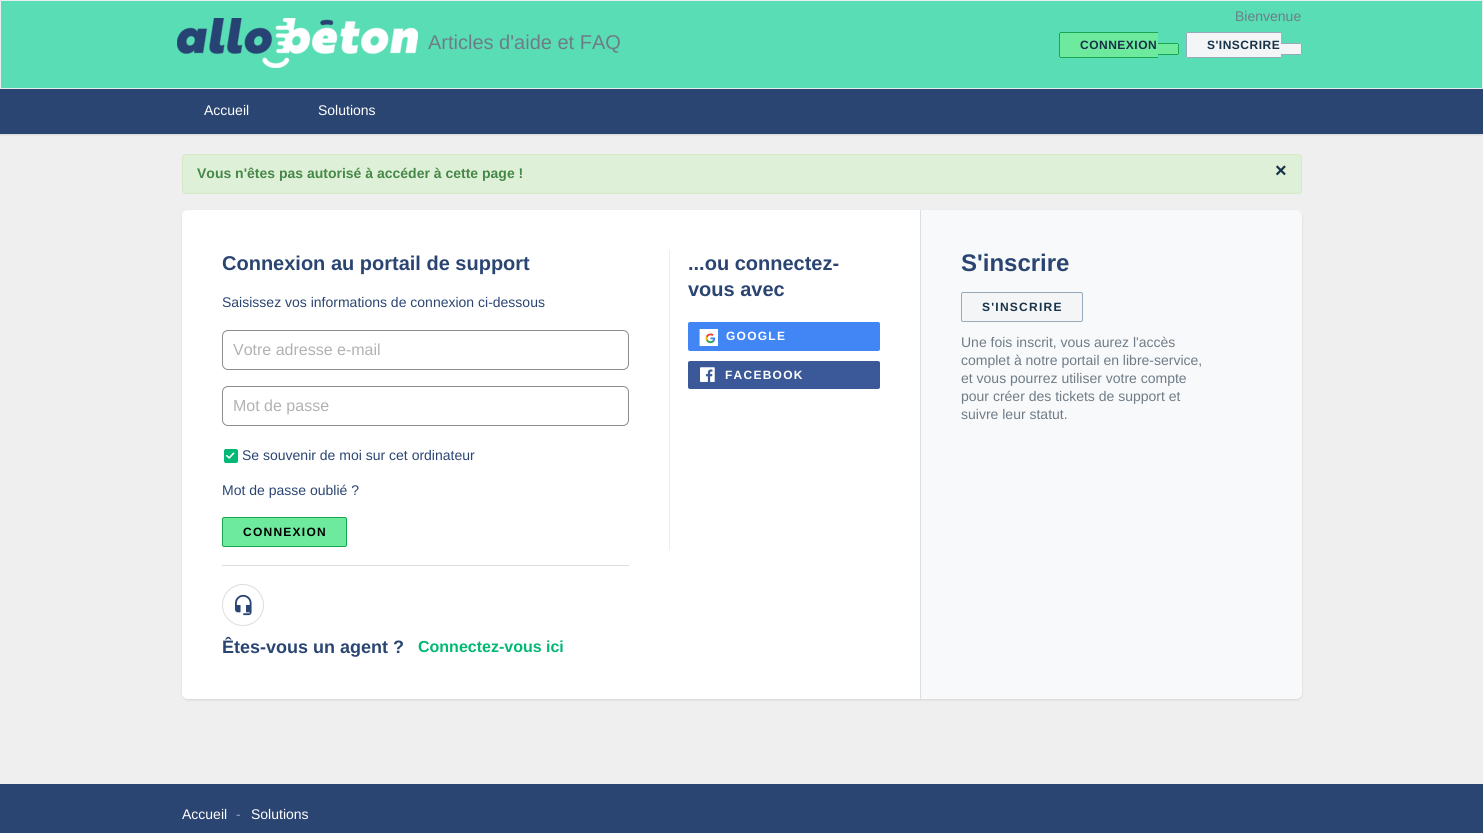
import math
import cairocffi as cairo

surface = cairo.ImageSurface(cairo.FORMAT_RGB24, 1483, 833)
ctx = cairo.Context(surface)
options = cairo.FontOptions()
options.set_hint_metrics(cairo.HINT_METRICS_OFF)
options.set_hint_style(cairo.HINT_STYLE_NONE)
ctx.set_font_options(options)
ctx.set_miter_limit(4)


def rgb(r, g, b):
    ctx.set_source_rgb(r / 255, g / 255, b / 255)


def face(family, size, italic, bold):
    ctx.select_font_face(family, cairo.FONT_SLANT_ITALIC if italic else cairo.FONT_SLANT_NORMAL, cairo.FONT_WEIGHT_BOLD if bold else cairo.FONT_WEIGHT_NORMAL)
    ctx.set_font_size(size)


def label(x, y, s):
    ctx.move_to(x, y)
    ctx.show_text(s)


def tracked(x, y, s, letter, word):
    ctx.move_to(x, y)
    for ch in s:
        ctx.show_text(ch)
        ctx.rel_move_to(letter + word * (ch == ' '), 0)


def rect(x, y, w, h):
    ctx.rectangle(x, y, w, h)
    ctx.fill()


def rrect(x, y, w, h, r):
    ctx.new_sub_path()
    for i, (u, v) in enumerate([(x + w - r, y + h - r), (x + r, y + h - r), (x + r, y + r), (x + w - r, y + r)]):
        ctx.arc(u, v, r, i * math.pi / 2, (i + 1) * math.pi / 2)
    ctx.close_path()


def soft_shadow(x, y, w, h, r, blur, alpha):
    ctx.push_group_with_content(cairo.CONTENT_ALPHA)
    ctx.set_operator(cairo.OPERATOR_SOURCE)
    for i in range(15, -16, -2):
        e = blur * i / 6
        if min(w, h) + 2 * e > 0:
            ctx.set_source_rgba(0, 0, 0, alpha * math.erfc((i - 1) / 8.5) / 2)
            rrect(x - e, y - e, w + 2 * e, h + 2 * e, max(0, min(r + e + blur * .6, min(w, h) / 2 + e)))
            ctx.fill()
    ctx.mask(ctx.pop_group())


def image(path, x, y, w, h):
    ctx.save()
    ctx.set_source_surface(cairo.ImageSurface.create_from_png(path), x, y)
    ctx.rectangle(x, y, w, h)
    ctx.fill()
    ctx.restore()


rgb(239, 239, 239)
ctx.paint()
rgb(89, 221, 181)
ctx.rectangle(0.5, 0.5, 1482, 88)
ctx.fill_preserve()
rgb(235, 238, 240)
ctx.set_line_width(1)
ctx.stroke()
image('image0.png', 177, 18, 241, 50)
face('Liberation Sans', 20, 0, 0)
rgb(111, 124, 135)
label(428, 49, 'Articles d\'aide et FAQ')
face('Liberation Sans', 14, 0, 0)
label(1235, 21, 'Bienvenue')
rgb(109, 234, 158)
ctx.new_path()
ctx.move_to(1061, 32)
ctx.line_to(1158, 32)
ctx.line_to(1158, 58)
ctx.line_to(1061, 58)
ctx.curve_to(1060, 58, 1059, 57, 1059, 56)
ctx.line_to(1059, 34)
ctx.curve_to(1059, 33, 1060, 32, 1061, 32)
ctx.close_path()
ctx.fill()
face('Liberation Sans', 12, 0, 1)
rgb(24, 50, 71)
tracked(1080, 49, 'CONNEXION', 0.5, 0)
rgb(24, 166, 80)
rect(1060, 32, 98, 1)
rect(1060, 57, 98, 1)
rect(1059, 33, 1, 24)
rgb(109, 234, 158)
ctx.new_path()
ctx.move_to(1158, 43)
ctx.line_to(1177, 43)
ctx.curve_to(1178, 43, 1179, 44, 1179, 45)
ctx.line_to(1179, 53)
ctx.curve_to(1179, 54, 1178, 55, 1177, 55)
ctx.line_to(1158, 55)
ctx.close_path()
ctx.fill()
rgb(24, 166, 80)
rect(1158, 43, 20, 1)
rect(1178, 44, 1, 10)
rect(1158, 54, 20, 1)
rgb(243, 245, 247)
ctx.new_path()
ctx.move_to(1188, 32)
ctx.line_to(1281, 32)
ctx.line_to(1281, 58)
ctx.line_to(1188, 58)
ctx.curve_to(1187, 58, 1186, 57, 1186, 56)
ctx.line_to(1186, 34)
ctx.curve_to(1186, 33, 1187, 32, 1188, 32)
ctx.close_path()
ctx.fill()
rgb(24, 50, 71)
tracked(1207, 49, 'S\'INSCRIRE', 0.5, 0)
rgb(151, 169, 186)
rect(1187, 32, 94, 1)
rect(1187, 57, 94, 1)
rect(1186, 33, 1, 24)
rgb(243, 245, 247)
ctx.new_path()
ctx.move_to(1281, 43)
ctx.line_to(1300, 43)
ctx.curve_to(1301, 43, 1302, 44, 1302, 45)
ctx.line_to(1302, 53)
ctx.curve_to(1302, 54, 1301, 55, 1300, 55)
ctx.line_to(1281, 55)
ctx.close_path()
ctx.fill()
rgb(151, 169, 186)
rect(1281, 43, 20, 1)
rect(1301, 44, 1, 10)
rect(1281, 54, 20, 1)
rgb(63, 63, 68)
soft_shadow(0, 90, 1483, 45, 0, 1, 0.15)
rgb(43, 69, 114)
rect(0, 89, 1483, 45)
face('Liberation Sans', 14, 0, 0)
rgb(255, 255, 255)
label(204, 115, 'Accueil')
label(318, 115, 'Solutions')
rgb(223, 240, 216)
rrect(182.5, 154.5, 1119, 39, 3.5)
ctx.fill_preserve()
rgb(214, 233, 198)
ctx.stroke()
face('Liberation Sans', 14, 0, 1)
rgb(70, 136, 71)
label(197, 178, 'Vous n\'êtes pas autorisé à accéder à cette page !')
face('Liberation Sans', 20, 0, 1)
rgb(24, 50, 71)
label(1275, 177, '×')
rgb(63, 63, 68)
soft_shadow(182, 211, 1120, 489, 6, 1, 0.15)
rgb(248, 249, 250)
rrect(182, 210, 1120, 489, 6)
ctx.fill()
rgb(255, 255, 255)
ctx.new_path()
ctx.move_to(188, 210)
ctx.line_to(921, 210)
ctx.line_to(921, 699)
ctx.line_to(188, 699)
ctx.curve_to(184.5, 699, 182, 696.5, 182, 693)
ctx.line_to(182, 216)
ctx.curve_to(182, 212.5, 184.5, 210, 188, 210)
ctx.close_path()
ctx.fill()
rgb(218, 223, 227)
rect(920, 210, 1, 489)
rgb(43, 69, 114)
label(222, 270, 'Connexion au portail de support')
face('Liberation Sans', 14, 0, 0)
label(222, 307, 'Saisissez vos informations de connexion ci-dessous')
rrect(222.5, 330.5, 406, 39, 5.5)
rgb(140, 140, 140)
ctx.stroke()
face('Liberation Sans', 16, 0, 0)
rgb(178, 178, 178)
label(233, 355, 'Votre adresse e-mail')
rrect(222.5, 386.5, 406, 39, 5.5)
rgb(140, 140, 140)
ctx.stroke()
rgb(178, 178, 178)
label(233, 411, 'Mot de passe')
rgb(2, 184, 117)
rrect(224.5, 449.5, 13, 13, 1.5)
ctx.fill_preserve()
ctx.stroke()
image('image1.png', 226, 452, 9, 7)
face('Liberation Sans', 14, 0, 0)
rgb(43, 69, 114)
label(242, 460, 'Se souvenir de moi sur cet ordinateur')
label(222, 495, 'Mot de passe oublié ?')
rgb(109, 234, 158)
rrect(222.5, 517.5, 124, 29, 1.5)
ctx.fill_preserve()
rgb(24, 166, 80)
ctx.stroke()
face('Liberation Sans', 12, 0, 1)
rgb(0, 0, 0)
tracked(243, 536, 'CONNEXION', 1.25, 0)
rgb(221, 221, 221)
rect(222, 565, 407, 1)
ctx.new_path()
ctx.arc(243, 605, 20.5, 0, 2 * math.pi)
ctx.stroke()
image('image2.png', 235, 594, 17, 22)
face('Liberation Sans', 18, 0, 1)
rgb(43, 69, 114)
label(222, 653, 'Êtes-vous un agent ?')
face('Liberation Sans', 16, 0, 1)
rgb(2, 184, 117)
label(418, 652, 'Connectez-vous ici')
rgb(235, 238, 240)
rect(669, 250, 1, 300)
face('Liberation Sans', 20, 0, 1)
rgb(43, 69, 114)
label(688, 270, '...ou connectez-')
label(688, 296, 'vous avec')
rgb(66, 133, 244)
rrect(688, 322, 192, 29, 2)
ctx.fill()
image('image3.png', 699, 329, 19, 17)
face('Liberation Sans', 12, 0, 1)
rgb(255, 255, 255)
tracked(726, 340, 'GOOGLE', 1.25, 0)
rgb(59, 89, 152)
rrect(688, 361, 192, 28, 2)
ctx.fill()
image('image4.png', 700, 367, 15, 15)
rgb(255, 255, 255)
tracked(725, 379, 'FACEBOOK', 1.25, 0)
face('Liberation Sans', 24, 0, 1)
rgb(43, 69, 114)
label(961, 271, 'S\'inscrire')
rgb(243, 245, 247)
rrect(961.5, 292.5, 121, 29, 1.5)
ctx.fill_preserve()
rgb(151, 169, 186)
ctx.stroke()
face('Liberation Sans', 12, 0, 1)
rgb(24, 50, 71)
tracked(982, 311, 'S\'INSCRIRE', 1.25, 0)
face('Liberation Sans', 14, 0, 0)
rgb(111, 124, 135)
label(961, 347, 'Une fois inscrit, vous aurez l\'accès')
label(961, 365, 'complet à notre portail en libre-service,')
label(961, 383, 'et vous pourrez utiliser votre compte')
label(961, 401, 'pour créer des tickets de support et')
label(961, 419, 'suivre leur statut.')
rgb(43, 69, 114)
rect(0, 784, 1483, 49)
rgb(255, 255, 255)
label(182, 819, 'Accueil')
rgb(149, 162, 185)
label(236, 819, '-')
rgb(255, 255, 255)
label(251, 819, 'Solutions')
surface.write_to_png('render.png')
